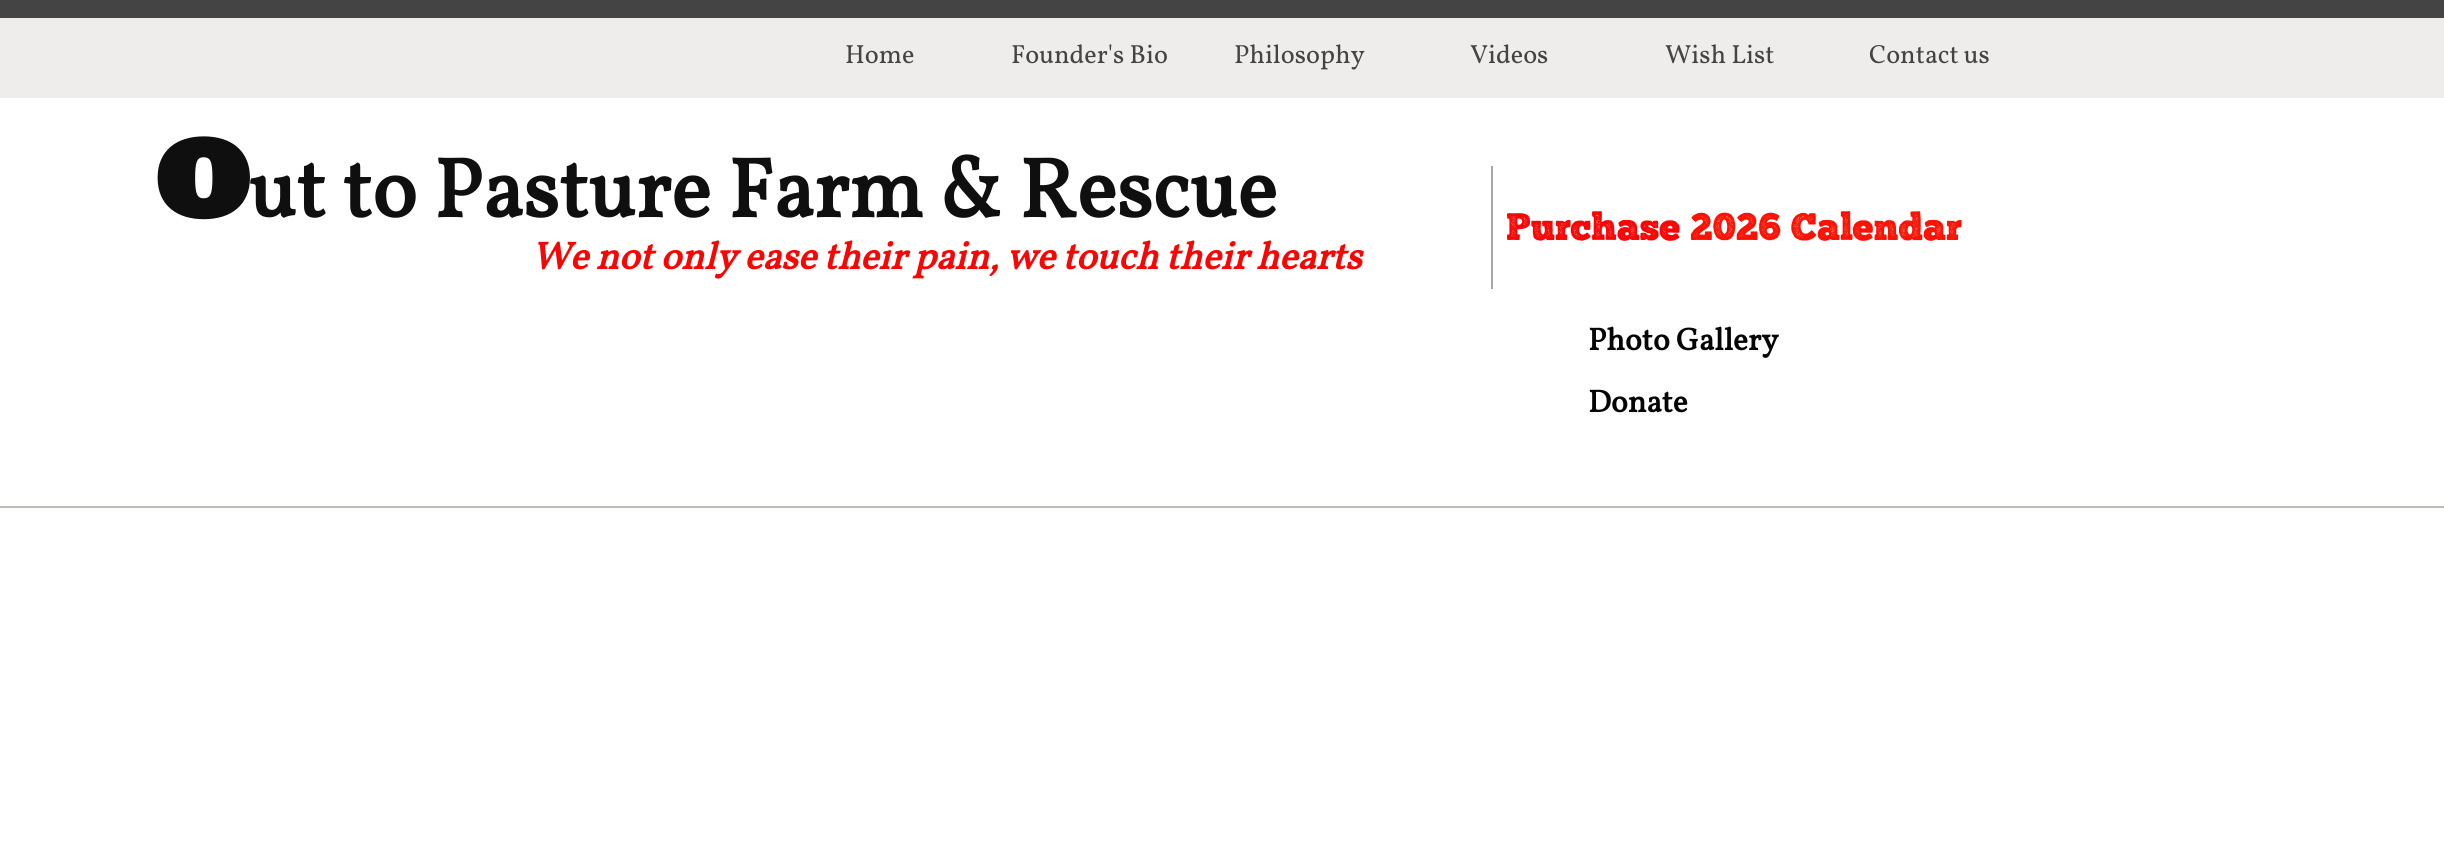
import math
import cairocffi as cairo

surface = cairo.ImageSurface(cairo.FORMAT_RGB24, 2444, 850)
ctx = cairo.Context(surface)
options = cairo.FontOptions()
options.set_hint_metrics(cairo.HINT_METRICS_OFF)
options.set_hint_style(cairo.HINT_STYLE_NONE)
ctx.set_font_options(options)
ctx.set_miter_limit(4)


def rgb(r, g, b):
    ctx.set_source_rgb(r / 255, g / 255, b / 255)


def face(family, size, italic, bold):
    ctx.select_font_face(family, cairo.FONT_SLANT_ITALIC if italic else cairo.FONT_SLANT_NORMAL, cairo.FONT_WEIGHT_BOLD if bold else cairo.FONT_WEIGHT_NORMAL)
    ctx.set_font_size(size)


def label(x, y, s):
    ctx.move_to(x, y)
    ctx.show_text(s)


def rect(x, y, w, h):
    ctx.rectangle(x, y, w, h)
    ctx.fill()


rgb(255, 255, 255)
ctx.paint()
rgb(68, 68, 68)
rect(0, 0, 2444, 18)
rgb(191, 186, 181)
rect(0, 506, 2444, 2)
rgb(239, 237, 236)
rect(0, 18, 2444, 80)
face('Vollkorn', 26.25, 0, 0)
rgb(68, 68, 68)
label(845, 63, 'Home')
label(1011, 63, 'Founder\'s Bio')
label(1234, 63, 'Philosophy')
label(1470, 63, 'Videos')
label(1665, 63, 'Wish List')
label(1869, 63, 'Contact us')
face('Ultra', 105, 0, 1)
rgb(15, 15, 15)
label(155, 217, 'O')
face('Vollkorn', 84, 0, 1)
label(249, 217, 'ut to Pasture Farm & Rescue')
rgb(168, 168, 168)
rect(1491, 166, 2, 123)
face('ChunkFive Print', 38.5, 0, 0)
rgb(247, 6, 6)
label(1506, 240, 'Purchase')
rgb(250, 18, 4)
label(1690, 240, '2026 Calendar')
face('Vollkorn', 38.5, 1, 1)
rgb(247, 6, 6)
label(531, 269, 'We not only ease their pain, we touch their hearts')
face('Vollkorn', 31.5, 0, 1)
rgb(5, 5, 5)
label(1588, 350, 'Photo Gallery')
label(1588, 412, 'Donate')
surface.write_to_png('render.png')
